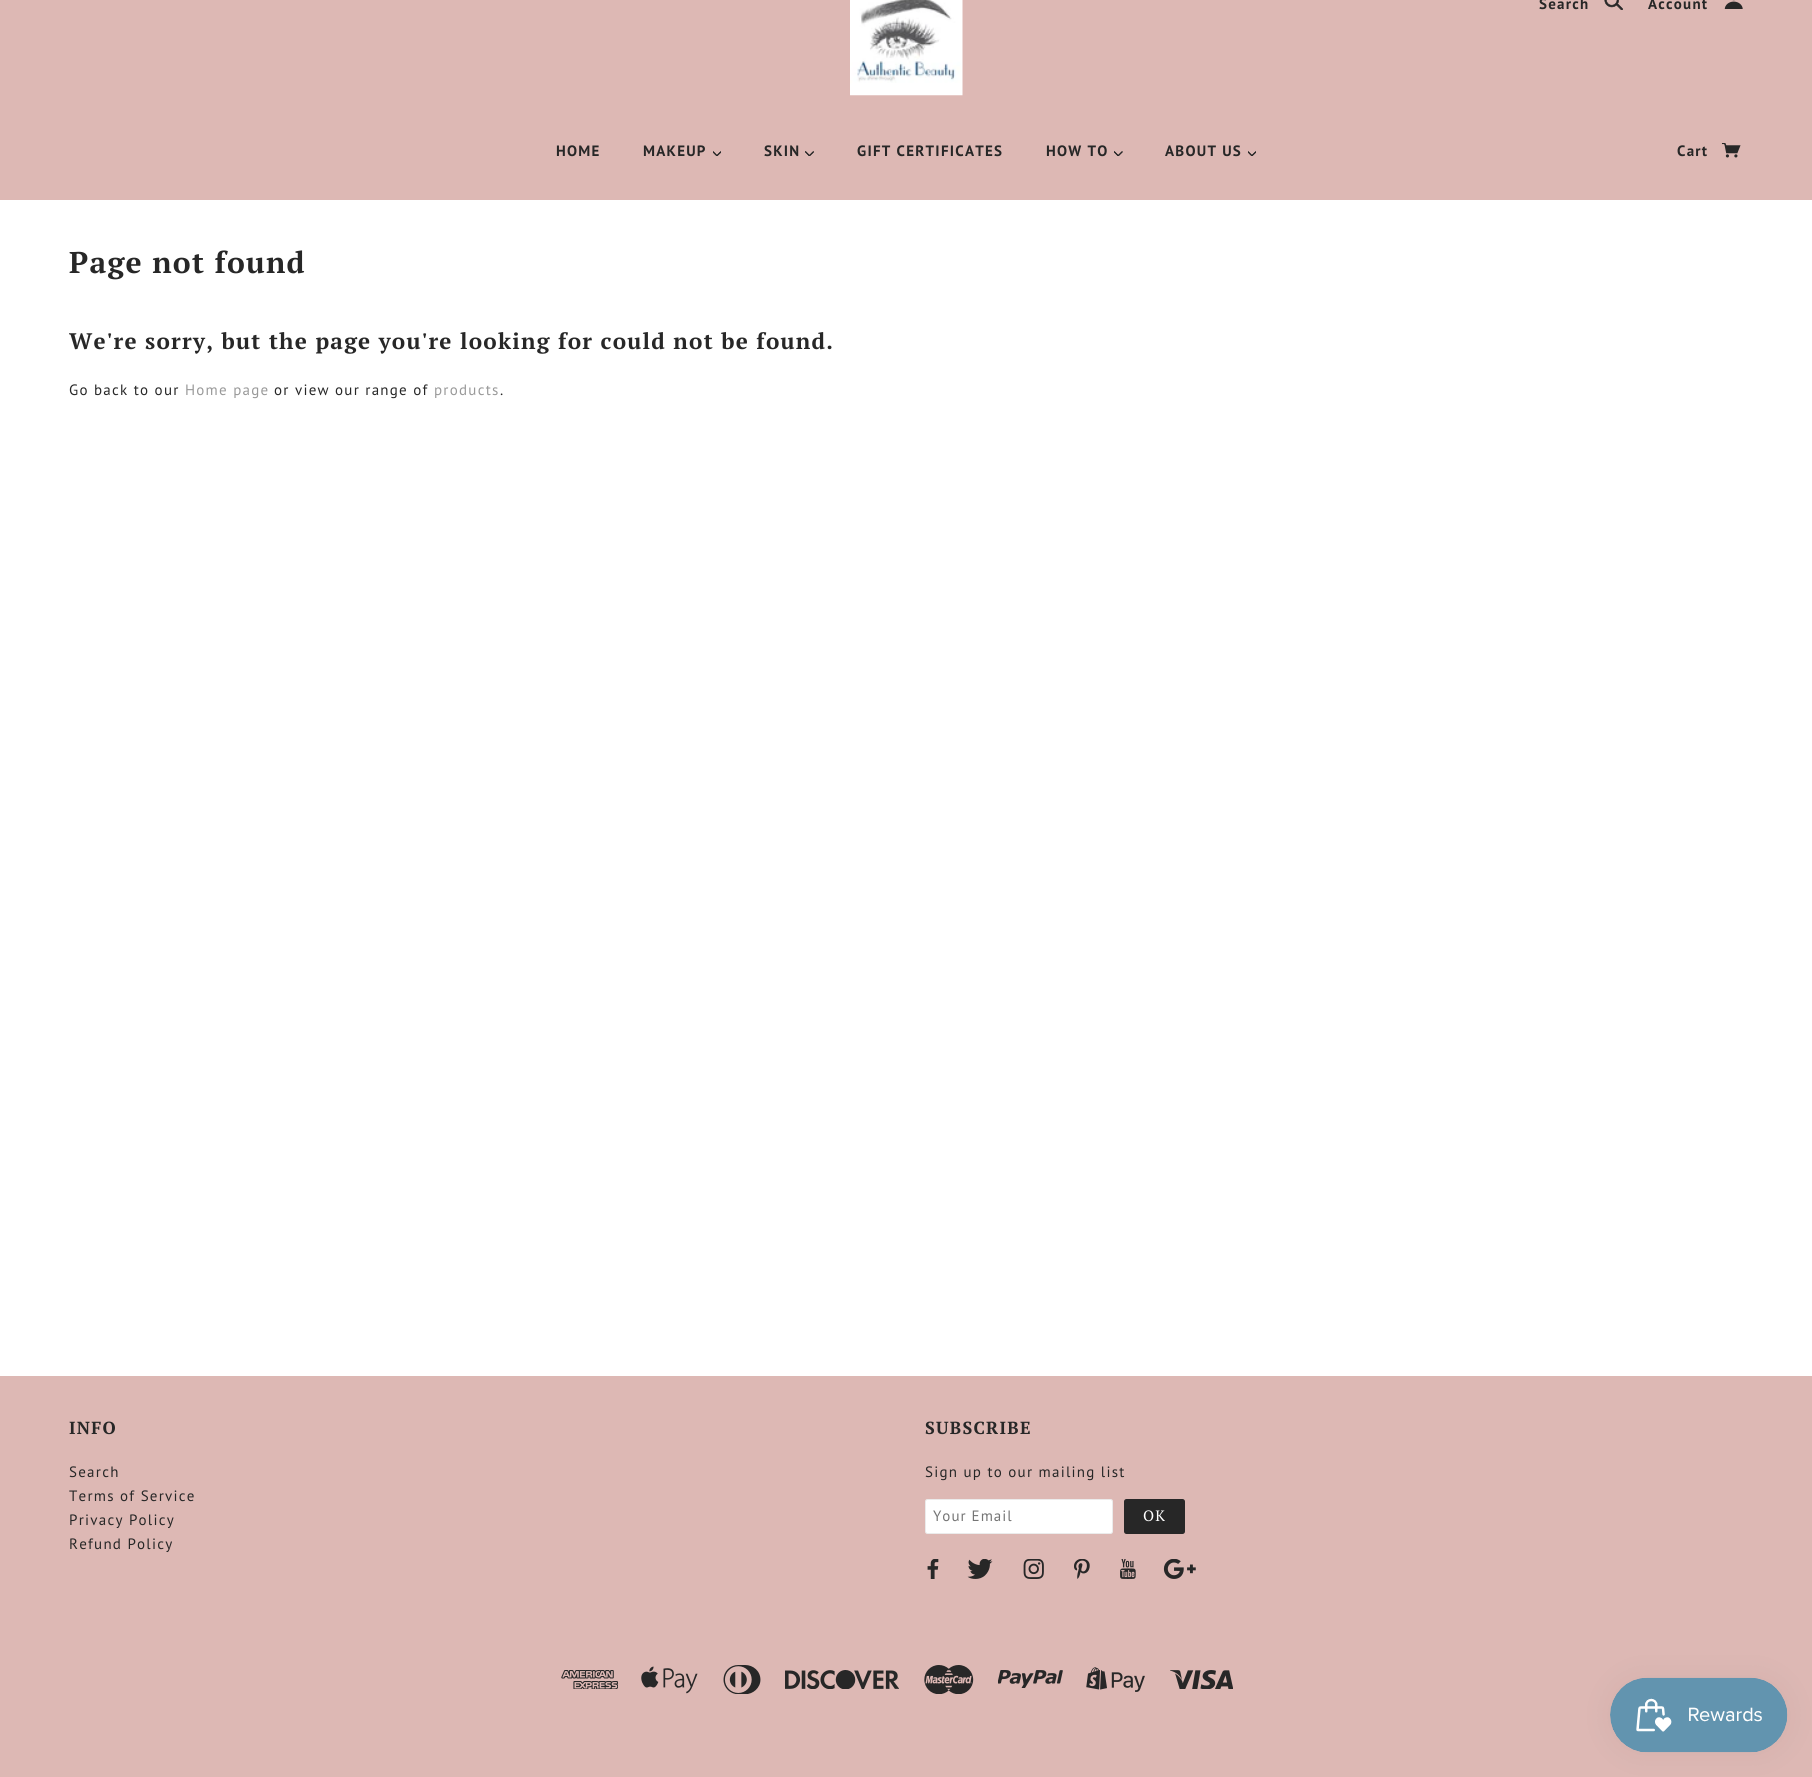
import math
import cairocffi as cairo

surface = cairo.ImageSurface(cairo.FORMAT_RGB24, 1812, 1777)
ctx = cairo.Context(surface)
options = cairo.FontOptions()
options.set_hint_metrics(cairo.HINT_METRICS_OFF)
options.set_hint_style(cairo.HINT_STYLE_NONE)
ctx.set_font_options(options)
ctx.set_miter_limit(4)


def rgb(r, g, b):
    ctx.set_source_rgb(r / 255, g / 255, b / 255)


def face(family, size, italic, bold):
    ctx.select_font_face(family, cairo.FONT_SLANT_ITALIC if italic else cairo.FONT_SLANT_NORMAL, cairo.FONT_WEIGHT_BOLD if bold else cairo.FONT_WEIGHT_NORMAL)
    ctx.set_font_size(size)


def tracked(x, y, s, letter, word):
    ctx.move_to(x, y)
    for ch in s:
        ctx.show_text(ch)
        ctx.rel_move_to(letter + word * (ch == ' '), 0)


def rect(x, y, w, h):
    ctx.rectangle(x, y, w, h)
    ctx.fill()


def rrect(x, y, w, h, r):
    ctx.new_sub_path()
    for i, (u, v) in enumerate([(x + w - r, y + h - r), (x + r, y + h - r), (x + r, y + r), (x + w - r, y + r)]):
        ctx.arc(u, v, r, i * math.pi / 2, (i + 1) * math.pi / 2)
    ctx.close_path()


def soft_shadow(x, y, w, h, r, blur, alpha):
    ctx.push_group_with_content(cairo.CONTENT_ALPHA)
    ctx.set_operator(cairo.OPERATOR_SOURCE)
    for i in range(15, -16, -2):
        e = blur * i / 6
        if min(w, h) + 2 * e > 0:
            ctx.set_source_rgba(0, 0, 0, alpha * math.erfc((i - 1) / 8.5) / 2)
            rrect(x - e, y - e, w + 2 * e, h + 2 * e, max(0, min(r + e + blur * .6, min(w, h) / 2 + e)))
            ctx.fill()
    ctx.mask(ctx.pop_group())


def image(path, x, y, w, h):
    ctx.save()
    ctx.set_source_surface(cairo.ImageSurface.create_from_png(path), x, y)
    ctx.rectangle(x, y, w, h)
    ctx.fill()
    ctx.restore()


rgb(255, 255, 255)
ctx.paint()
rgb(221, 184, 180)
rect(0, 0, 1812, 200)
image('image0.png', 850, 0, 113, 96)
face('PT Sans', 15, 0, 1)
rgb(39, 39, 39)
tracked(1539, 9, 'Search', 1.25, 0)
image('image1.png', 1604, 0, 19, 10)
tracked(1648, 9, 'Account', 1.25, 0)
image('image2.png', 1724, 0, 19, 9)
tracked(556, 156, 'HOME', 1.25, 0)
tracked(643, 156, 'MAKEUP', 1.25, 0)
image('image3.png', 713, 151, 8, 5)
tracked(764, 156, 'SKIN', 1.25, 0)
image('image4.png', 805, 151, 9, 5)
tracked(857, 156, 'GIFT CERTIFICATES', 1.25, 0)
tracked(1046, 156, 'HOW TO', 1.25, 0)
image('image5.png', 1114, 151, 9, 5)
tracked(1165, 156, 'ABOUT US', 1.25, 0)
image('image3.png', 1248, 151, 8, 5)
tracked(1677, 156, 'Cart', 1.25, 0)
image('image6.png', 1721, 143, 20, 15)
face('PT Serif', 30, 0, 1)
tracked(69, 273, 'Page not found', 1.25, 0)
face('PT Serif', 22.5, 0, 1)
tracked(69, 349, 'We\'re sorry, but the page you\'re looking for could not be found.', 1.25, 0)
face('PT Sans', 15, 0, 0)
tracked(69, 395, 'Go back to our', 1.25, 0)
rgb(153, 153, 153)
tracked(185, 395, 'Home page', 1.25, 0)
rgb(39, 39, 39)
tracked(274, 395, 'or view our range of', 1.25, 0)
rgb(153, 153, 153)
tracked(434, 395, 'products', 1.25, 0)
rgb(39, 39, 39)
tracked(500, 395, '.', 1.25, 0)
rgb(221, 184, 180)
rect(0, 1376, 1812, 401)
face('PT Serif', 17.5, 0, 1)
rgb(39, 39, 39)
tracked(69, 1434, 'INFO', 1.25, 0)
face('PT Sans', 15, 0, 0)
tracked(69, 1477, 'Search', 1.25, 0)
tracked(69, 1501, 'Terms of Service', 1.25, 0)
tracked(69, 1525, 'Privacy Policy', 1.25, 0)
tracked(69, 1549, 'Refund Policy', 1.25, 0)
face('PT Serif', 17.5, 0, 1)
tracked(925, 1434, 'SUBSCRIBE', 1.25, 0)
face('PT Sans', 15, 0, 0)
tracked(925, 1477, 'Sign up to our mailing list', 1.25, 0)
rgb(255, 255, 255)
rrect(925.5, 1499.5, 187, 34, 2)
ctx.fill_preserve()
rgb(235, 235, 235)
ctx.set_line_width(1)
ctx.stroke()
rgb(117, 117, 117)
tracked(933, 1521, 'Your Email', 1, 0)
rgb(39, 39, 39)
rrect(1124, 1499, 61, 35, 2.5)
ctx.fill()
face('PT Serif', 15, 0, 0)
rgb(255, 255, 255)
tracked(1143, 1521, 'OK', 1.25, 0)
image('image7.png', 927, 1559, 12, 20)
image('image8.png', 967, 1559, 26, 20)
image('image9.png', 1023, 1559, 21, 20)
image('image10.png', 1074, 1559, 16, 20)
image('image11.png', 1120, 1559, 16, 20)
image('image12.png', 1163, 1559, 33, 20)
image('image13.png', 561, 1670, 57, 19)
image('image14.png', 641, 1666, 57, 28)
image('image15.png', 723, 1665, 38, 29)
image('image16.png', 785, 1670, 114, 19)
image('image17.png', 924, 1665, 50, 29)
image('image18.png', 998, 1670, 65, 18)
image('image19.png', 1086, 1667, 59, 25)
image('image20.png', 1170, 1670, 63, 19)
rgb(0, 0, 0)
soft_shadow(1610, 1678, 178, 75, 37.5, 15.5, 0.05)
image('image21.png', 1610, 1677, 178, 76)
surface.write_to_png('render.png')
